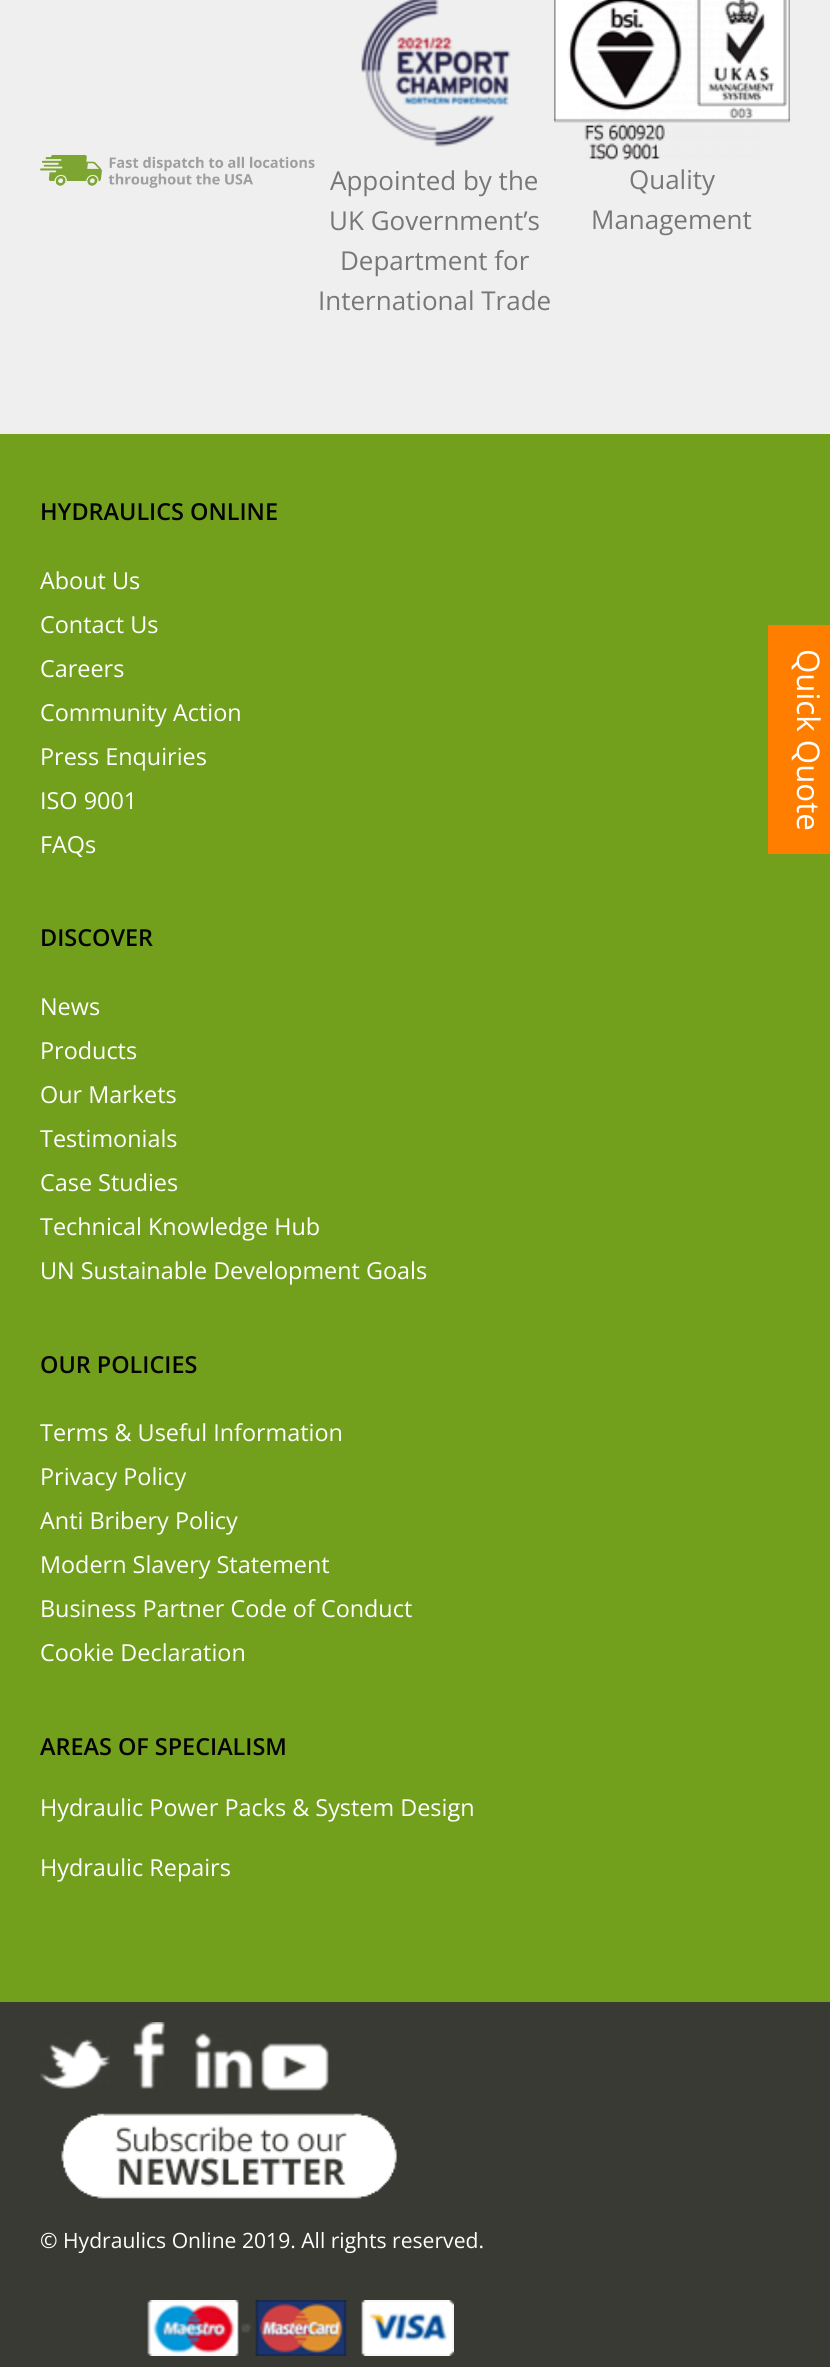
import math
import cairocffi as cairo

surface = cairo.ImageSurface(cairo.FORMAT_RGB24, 830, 2367)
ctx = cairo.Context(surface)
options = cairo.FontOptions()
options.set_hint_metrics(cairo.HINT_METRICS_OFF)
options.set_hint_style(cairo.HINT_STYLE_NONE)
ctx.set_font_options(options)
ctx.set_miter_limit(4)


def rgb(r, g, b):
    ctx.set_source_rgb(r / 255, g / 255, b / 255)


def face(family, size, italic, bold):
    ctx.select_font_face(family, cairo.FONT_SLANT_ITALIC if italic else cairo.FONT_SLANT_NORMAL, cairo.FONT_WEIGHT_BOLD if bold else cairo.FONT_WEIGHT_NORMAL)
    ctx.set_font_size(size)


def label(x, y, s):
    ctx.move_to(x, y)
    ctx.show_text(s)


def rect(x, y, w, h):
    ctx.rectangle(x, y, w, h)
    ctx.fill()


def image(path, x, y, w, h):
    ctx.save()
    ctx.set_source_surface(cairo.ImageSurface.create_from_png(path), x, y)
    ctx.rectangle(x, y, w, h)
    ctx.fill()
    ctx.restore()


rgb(239, 239, 239)
ctx.paint()
image('image0.png', 40, 155, 275, 33)
image('image1.png', 361, 0, 150, 147)
face('Open Sans', 26, 0, 0)
rgb(119, 119, 119)
label(330, 190, 'Appointed by the')
label(329, 230, 'UK Government’s')
label(340, 270, 'Department for')
label(318, 310, 'International Trade')
image('image2.png', 554, 0, 236, 160)
label(629, 189, 'Quality')
label(591, 229, 'Management')
rgb(114, 159, 28)
rect(0, 434, 830, 1568)
face('Open Sans SemiBold', 23.4, 0, 0)
rgb(2, 2, 2)
label(40, 520, 'HYDRAULICS ONLINE')
face('Open Sans', 23.4, 0, 0)
rgb(255, 255, 255)
label(40, 589, 'About Us')
label(40, 633, 'Contact Us')
label(40, 677, 'Careers')
label(40, 721, 'Community Action')
label(40, 765, 'Press Enquiries')
label(40, 809, 'ISO 9001')
label(40, 853, 'FAQs')
face('Open Sans SemiBold', 23.4, 0, 0)
rgb(2, 2, 2)
label(40, 946, 'DISCOVER')
face('Open Sans', 23.4, 0, 0)
rgb(255, 255, 255)
label(40, 1015, 'News')
label(40, 1059, 'Products')
label(40, 1103, 'Our Markets')
label(40, 1147, 'Testimonials')
label(40, 1191, 'Case Studies')
label(40, 1235, 'Technical Knowledge Hub')
label(40, 1279, 'UN Sustainable Development Goals')
face('Open Sans SemiBold', 23.4, 0, 0)
rgb(2, 2, 2)
label(40, 1373, 'OUR POLICIES')
face('Open Sans', 23.4, 0, 0)
rgb(255, 255, 255)
label(40, 1441, 'Terms & Useful Information')
label(40, 1485, 'Privacy Policy')
label(40, 1529, 'Anti Bribery Policy')
label(40, 1573, 'Modern Slavery Statement')
label(40, 1617, 'Business Partner Code of Conduct')
label(40, 1661, 'Cookie Declaration')
face('Open Sans SemiBold', 23.4, 0, 0)
rgb(2, 2, 2)
label(40, 1755, 'AREAS OF SPECIALISM')
face('Open Sans', 23.4, 0, 0)
rgb(255, 255, 255)
label(40, 1816, 'Hydraulic Power Packs & System Design')
label(40, 1876, 'Hydraulic Repairs')
rgb(56, 58, 51)
rect(0, 2002, 830, 365)
image('image3.png', 40, 2039, 70, 50)
image('image4.png', 133, 2022, 32, 67)
image('image5.png', 195, 2033, 58, 56)
image('image6.png', 261, 2043, 68, 48)
image('image7.png', 61, 2113, 336, 86)
face('Open Sans', 21.1, 0, 0)
rgb(255, 255, 255)
label(40, 2248, '© Hydraulics Online 2019. All rights reserved.')
image('image8.png', 147, 2300, 307, 56)
rgb(255, 126, 0)
rect(768, 625, 62, 229)
face('Open Sans', 31.25, 0, 0)
rgb(255, 255, 255)
ctx.save()
ctx.translate(797, 649)
ctx.rotate(90 * math.pi / 180)
label(0, 0, 'Quick Quote')
ctx.restore()
surface.write_to_png('render.png')
